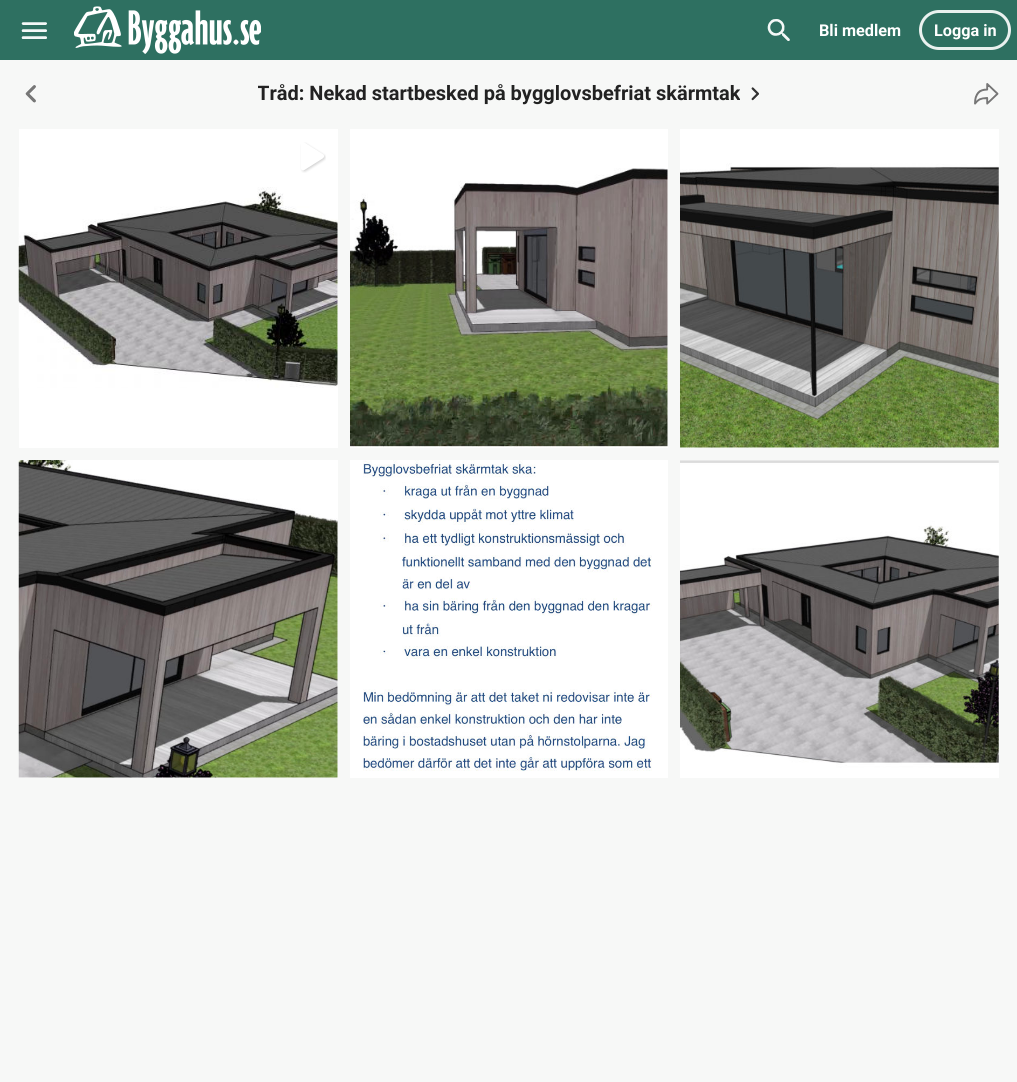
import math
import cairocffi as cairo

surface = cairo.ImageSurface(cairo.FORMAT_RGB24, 1017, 1082)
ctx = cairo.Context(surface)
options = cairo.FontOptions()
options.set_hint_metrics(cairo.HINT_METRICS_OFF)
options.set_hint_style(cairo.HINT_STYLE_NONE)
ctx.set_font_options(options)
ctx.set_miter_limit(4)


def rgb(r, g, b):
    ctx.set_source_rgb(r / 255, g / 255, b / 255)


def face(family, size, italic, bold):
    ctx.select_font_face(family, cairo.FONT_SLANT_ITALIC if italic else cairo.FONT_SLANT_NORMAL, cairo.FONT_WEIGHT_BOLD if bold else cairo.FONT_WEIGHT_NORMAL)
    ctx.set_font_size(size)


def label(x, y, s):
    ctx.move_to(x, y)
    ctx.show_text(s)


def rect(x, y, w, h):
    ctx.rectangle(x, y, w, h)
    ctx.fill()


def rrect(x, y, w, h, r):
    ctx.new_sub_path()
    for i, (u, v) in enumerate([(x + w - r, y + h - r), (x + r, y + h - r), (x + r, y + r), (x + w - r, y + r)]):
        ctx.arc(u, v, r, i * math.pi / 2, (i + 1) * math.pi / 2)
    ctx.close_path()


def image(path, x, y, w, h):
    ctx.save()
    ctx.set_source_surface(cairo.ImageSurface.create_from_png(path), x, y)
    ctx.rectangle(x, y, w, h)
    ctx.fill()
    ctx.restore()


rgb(247, 248, 247)
ctx.paint()
rgb(46, 112, 97)
rect(0, 0, 1017, 60)
image('image0.png', 21, 22, 26, 17)
image('image1.png', 74, 6, 187, 48)
image('image2.png', 767, 19, 23, 22)
face('Roboto', 16.25, 0, 1)
rgb(255, 255, 255)
label(819, 36, 'Bli medlem')
rrect(920.5, 11.5, 89, 37, 18.5)
rgb(234, 241, 239)
ctx.set_line_width(3)
ctx.stroke()
rgb(255, 255, 255)
label(934, 36, 'Logga in')
image('image3.png', 25, 85, 11, 18)
ctx.save()
ctx.rectangle(258, 81, 482, 25)
ctx.clip()
face('Roboto', 20, 0, 1)
rgb(34, 34, 34)
label(257, 100, 'Tråd: Nekad startbesked på bygglovsbefriat skärmtak')
ctx.restore()
image('image4.png', 751, 87, 8, 14)
image('image5.png', 974, 83, 25, 22)
rect(19, 129, 319, 319)
image('image6.png', 18, 187, 320, 201)
image('image7.png', 300, 142, 26, 31)
rect(350, 129, 318, 319)
image('image8.png', 350, 168, 318, 280)
rect(680, 129, 319, 319)
image('image9.png', 680, 163, 319, 285)
rect(19, 460, 319, 318)
image('image10.png', 18, 460, 320, 318)
rect(350, 460, 318, 318)
image('image11.png', 363, 460, 289, 311)
rect(680, 460, 319, 318)
image('image12.png', 680, 460, 319, 308)
surface.write_to_png('render.png')
